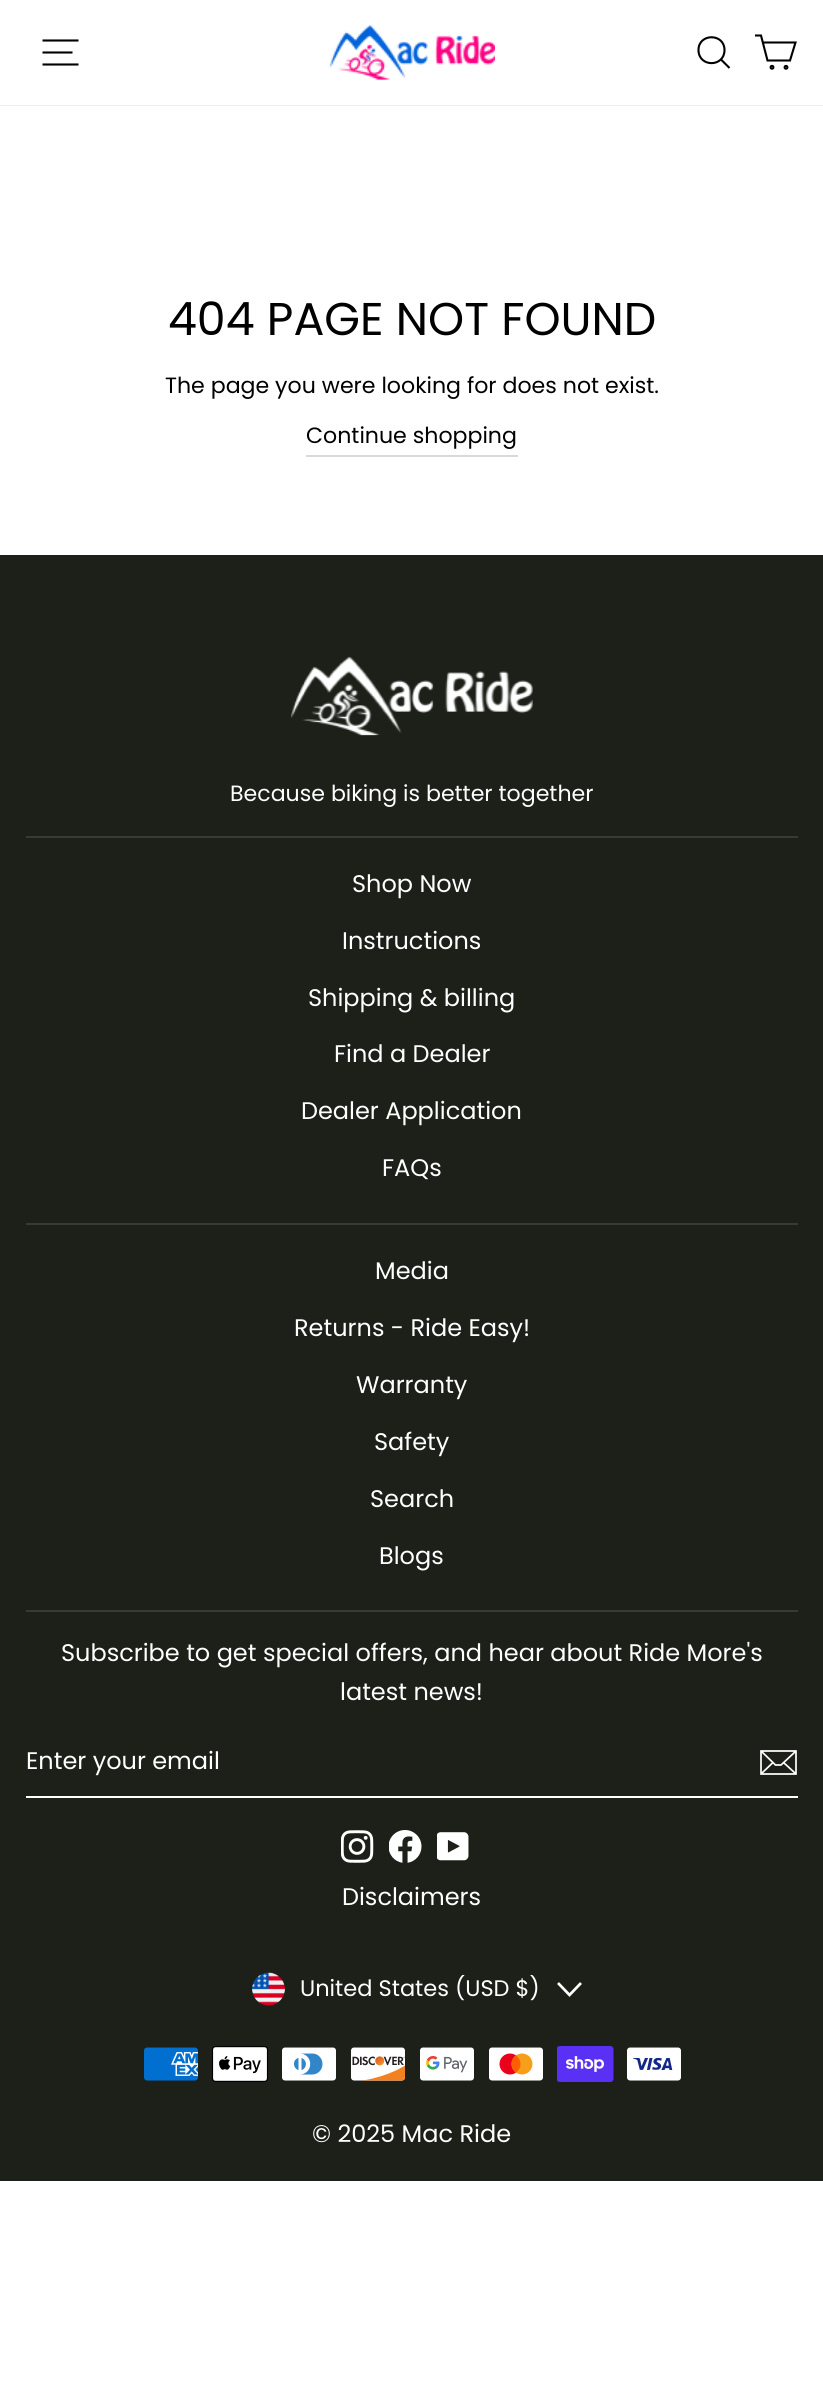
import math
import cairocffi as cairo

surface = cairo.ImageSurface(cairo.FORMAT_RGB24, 823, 2393)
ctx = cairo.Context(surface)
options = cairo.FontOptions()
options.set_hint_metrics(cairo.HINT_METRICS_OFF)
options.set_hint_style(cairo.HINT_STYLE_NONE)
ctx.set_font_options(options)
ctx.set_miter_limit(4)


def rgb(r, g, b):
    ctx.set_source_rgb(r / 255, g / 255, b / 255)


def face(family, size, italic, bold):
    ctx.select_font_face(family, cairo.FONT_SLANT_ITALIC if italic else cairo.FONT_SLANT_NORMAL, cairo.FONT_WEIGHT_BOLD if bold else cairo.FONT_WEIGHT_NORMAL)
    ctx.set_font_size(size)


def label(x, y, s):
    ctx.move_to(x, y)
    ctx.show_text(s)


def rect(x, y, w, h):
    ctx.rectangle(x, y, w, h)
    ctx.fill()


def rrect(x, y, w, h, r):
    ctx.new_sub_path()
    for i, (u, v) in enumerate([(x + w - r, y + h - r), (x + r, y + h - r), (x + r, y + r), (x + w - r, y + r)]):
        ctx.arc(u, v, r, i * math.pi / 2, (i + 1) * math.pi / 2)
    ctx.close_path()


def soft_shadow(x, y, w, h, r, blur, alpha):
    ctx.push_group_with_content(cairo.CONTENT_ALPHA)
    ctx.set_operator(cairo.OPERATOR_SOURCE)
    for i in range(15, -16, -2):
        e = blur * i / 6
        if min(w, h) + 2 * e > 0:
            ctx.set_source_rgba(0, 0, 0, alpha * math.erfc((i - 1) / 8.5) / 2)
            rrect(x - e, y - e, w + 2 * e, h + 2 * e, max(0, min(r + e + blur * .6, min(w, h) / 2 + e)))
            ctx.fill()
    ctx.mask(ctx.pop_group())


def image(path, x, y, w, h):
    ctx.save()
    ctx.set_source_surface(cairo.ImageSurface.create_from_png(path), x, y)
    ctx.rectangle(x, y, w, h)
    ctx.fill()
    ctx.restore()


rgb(255, 255, 255)
ctx.paint()
ctx.save()
ctx.rectangle(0, 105, 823, 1)
ctx.clip()
rgb(0, 0, 0)
soft_shadow(0, 0, 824, 105, 0, 1, 0.2)
ctx.restore()
ctx.new_path()
ctx.move_to(42.5, 40.5)
ctx.line_to(78.5, 40.5)
ctx.move_to(42.5, 52.5)
ctx.line_to(72.5, 52.5)
ctx.move_to(42.5, 64.5)
ctx.line_to(78.5, 64.5)
rgb(0, 0, 0)
ctx.set_line_width(2.1)
ctx.stroke()
image('image0.png', 329, 25, 166, 55)
ctx.new_path()
ctx.move_to(724.5, 50)
ctx.curve_to(724.5, 67.5, 698.5, 67.5, 698.5, 50)
ctx.curve_to(698.5, 33, 724.5, 33, 724.5, 50)
ctx.close_path()
ctx.move_to(729.5, 68)
ctx.line_to(721, 59.5)
ctx.stroke()
ctx.new_path()
ctx.move_to(763, 42.5)
ctx.line_to(795.5, 42.5)
ctx.line_to(790, 60.5)
ctx.line_to(767.5, 60.5)
ctx.line_to(761, 35.5)
ctx.line_to(755, 35.5)
ctx.stroke()
ctx.arc(772, 67.3, 1.4, 0, 2 * math.pi)
ctx.stroke()
ctx.arc(786, 67.3, 1.4, 0, 2 * math.pi)
ctx.stroke()
face('Poppins', 45.9, 0, 0)
label(168, 335, '404 PAGE NOT FOUND')
face('Poppins', 22.1, 0, 0)
label(165, 393, 'The page you were looking for does not exist.')
rgb(217, 217, 217)
rect(306, 455, 212, 2)
rgb(0, 0, 0)
label(306, 443, 'Continue shopping')
rgb(29, 32, 25)
rect(0, 555, 823, 1626)
image('image1.png', 291, 656, 242, 80)
rgb(255, 255, 255)
label(230, 801, 'Because biking is better together')
rgb(56, 59, 53)
rect(26, 836, 772, 2)
face('Poppins', 24, 0, 0)
rgb(255, 255, 255)
label(352, 892, 'Shop Now')
label(342, 949, 'Instructions')
label(308, 1006, 'Shipping & billing')
label(334, 1062, 'Find a Dealer')
label(301, 1119, 'Dealer Application')
label(382, 1176, 'FAQs')
rgb(56, 59, 53)
rect(26, 1223, 772, 2)
rgb(255, 255, 255)
label(375, 1279, 'Media')
label(294, 1336, 'Returns - Ride Easy!')
label(356, 1393, 'Warranty')
label(374, 1450, 'Safety')
label(370, 1507, 'Search')
label(379, 1564, 'Blogs')
rgb(56, 59, 53)
rect(26, 1610, 772, 2)
rgb(255, 255, 255)
label(61, 1661, 'Subscribe to get special offers, and hear about Ride More\'s')
label(340, 1700, 'latest news!')
rect(26, 1796, 772, 2)
label(26, 1769, 'Enter your email')
ctx.new_path()
ctx.move_to(796, 1774)
ctx.line_to(761, 1774)
ctx.line_to(761, 1751)
ctx.line_to(796, 1751)
ctx.close_path()
ctx.move_to(761, 1751)
ctx.line_to(775.5, 1765)
ctx.line_to(781, 1765)
ctx.line_to(796, 1751)
ctx.move_to(773, 1762.5)
ctx.line_to(761.5, 1773.5)
ctx.move_to(795.5, 1773.5)
ctx.line_to(783.5, 1762.5)
ctx.set_line_width(1.7)
ctx.stroke()
image('image2.png', 341, 1830, 33, 33)
image('image3.png', 389, 1830, 33, 33)
image('image4.png', 437, 1832, 32, 29)
label(342, 1905, 'Disclaimers')
image('image5.png', 252, 1972, 33, 34)
face('Poppins', 22.5, 0, 0)
label(300, 1996, 'United States (USD $)')
ctx.new_path()
ctx.move_to(558, 1983)
ctx.line_to(569.5, 1995)
ctx.line_to(581, 1983)
ctx.set_line_width(2.7)
ctx.stroke()
image('image6.png', 144, 2047, 54, 34)
image('image7.png', 212, 2046, 56, 36)
image('image8.png', 282, 2047, 54, 34)
image('image9.png', 351, 2047, 55, 34)
image('image10.png', 420, 2047, 54, 34)
image('image11.png', 489, 2047, 54, 34)
image('image12.png', 557, 2046, 57, 36)
image('image13.png', 627, 2047, 54, 34)
face('Poppins', 24, 0, 0)
label(312, 2142, '© 2025 Mac Ride')
surface.write_to_png('render.png')
